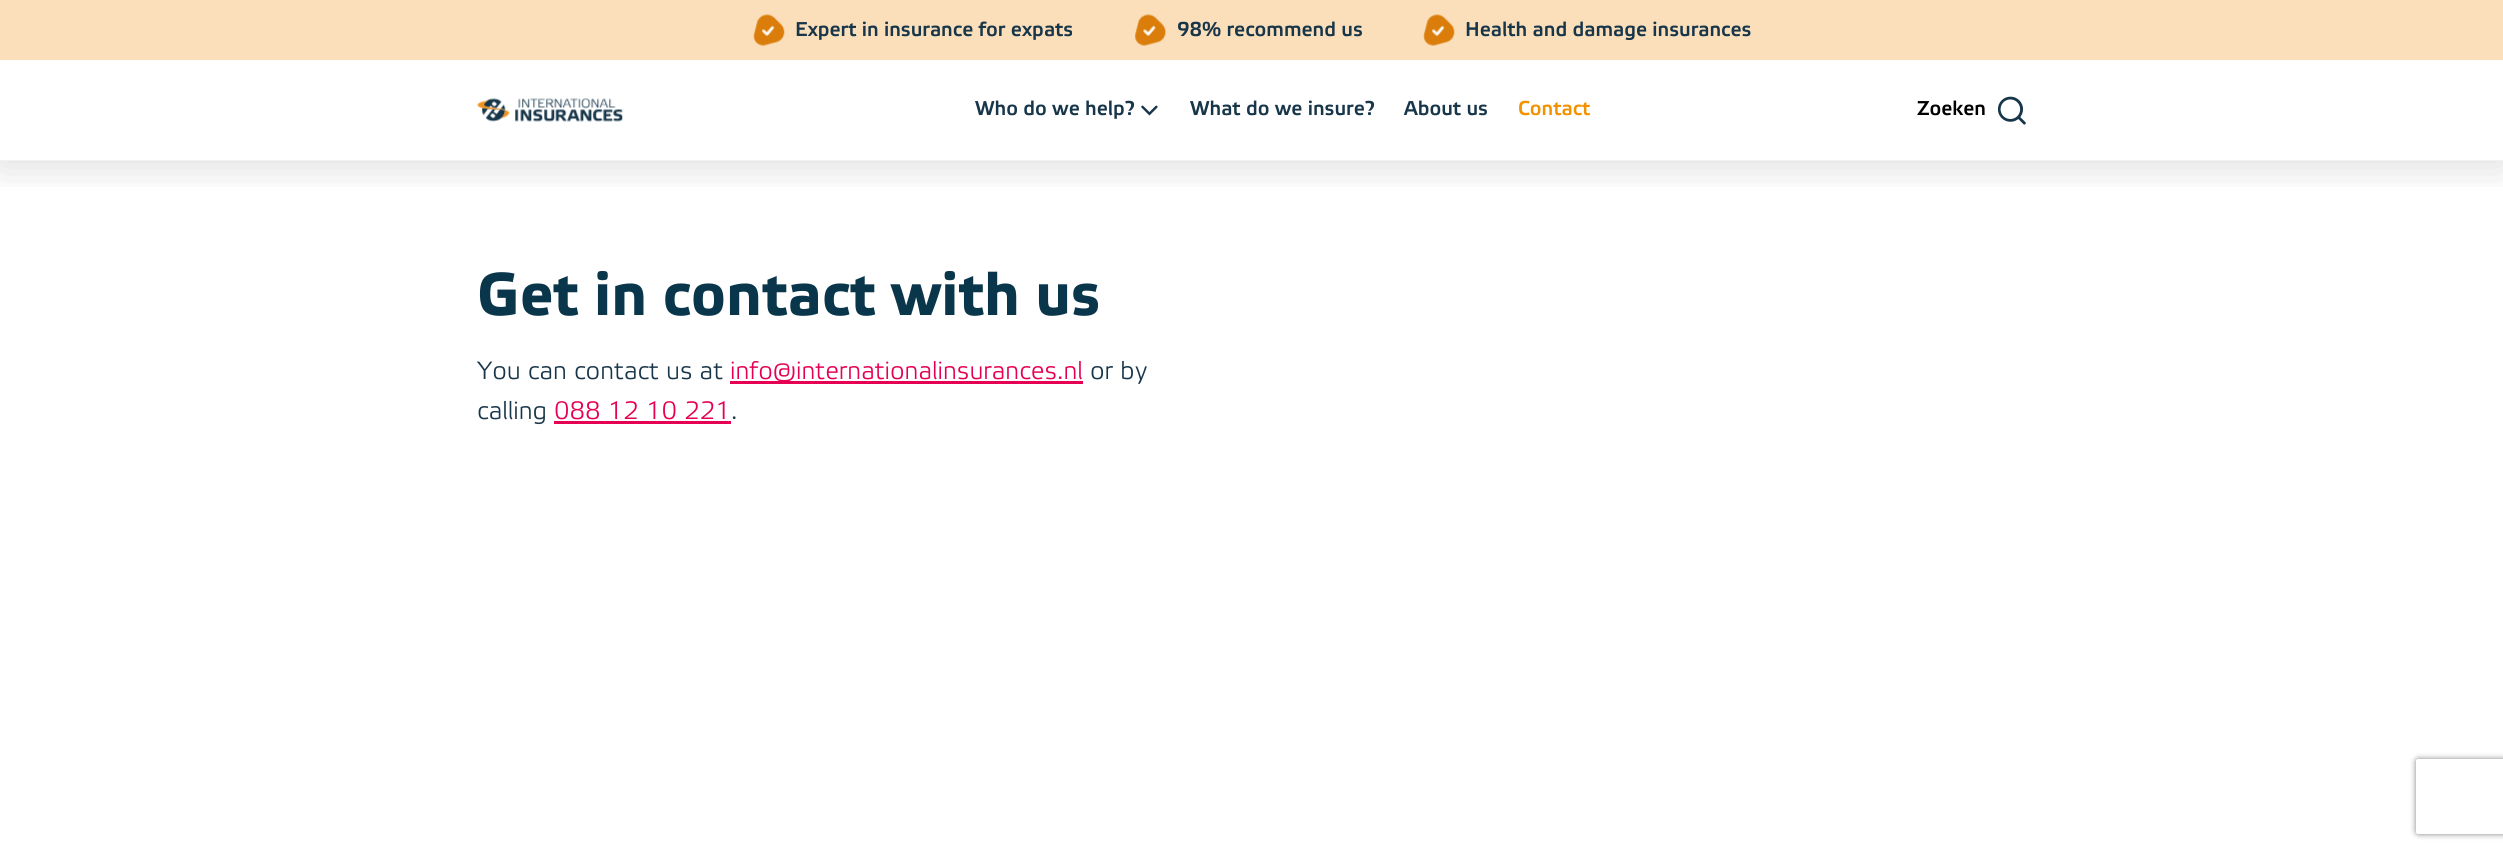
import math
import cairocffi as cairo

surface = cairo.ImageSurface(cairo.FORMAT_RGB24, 2503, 851)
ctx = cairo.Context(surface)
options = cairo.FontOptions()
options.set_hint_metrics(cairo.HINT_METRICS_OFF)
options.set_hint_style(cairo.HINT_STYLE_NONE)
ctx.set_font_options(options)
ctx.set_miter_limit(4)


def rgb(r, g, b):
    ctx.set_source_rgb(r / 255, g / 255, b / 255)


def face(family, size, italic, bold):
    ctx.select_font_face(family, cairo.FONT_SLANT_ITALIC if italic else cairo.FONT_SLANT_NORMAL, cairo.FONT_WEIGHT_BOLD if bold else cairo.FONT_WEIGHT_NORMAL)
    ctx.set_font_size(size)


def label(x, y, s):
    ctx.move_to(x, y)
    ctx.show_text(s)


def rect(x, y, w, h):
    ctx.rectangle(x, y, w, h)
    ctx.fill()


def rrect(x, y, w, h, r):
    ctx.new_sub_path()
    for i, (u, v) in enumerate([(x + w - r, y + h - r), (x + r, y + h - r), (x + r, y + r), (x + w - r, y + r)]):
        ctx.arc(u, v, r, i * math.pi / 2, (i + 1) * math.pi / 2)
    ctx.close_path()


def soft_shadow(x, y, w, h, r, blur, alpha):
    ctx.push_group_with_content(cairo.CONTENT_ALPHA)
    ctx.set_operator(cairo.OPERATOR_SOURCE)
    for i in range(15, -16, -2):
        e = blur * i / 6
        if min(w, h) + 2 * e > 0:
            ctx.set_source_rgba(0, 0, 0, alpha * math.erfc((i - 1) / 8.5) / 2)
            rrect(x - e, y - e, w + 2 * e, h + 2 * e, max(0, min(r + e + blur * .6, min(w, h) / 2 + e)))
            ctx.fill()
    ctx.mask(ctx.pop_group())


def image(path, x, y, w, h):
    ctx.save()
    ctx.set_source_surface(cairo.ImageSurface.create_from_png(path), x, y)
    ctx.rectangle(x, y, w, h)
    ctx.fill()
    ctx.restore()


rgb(255, 255, 255)
ctx.paint()
ctx.save()
ctx.rectangle(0, 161, 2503, 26)
ctx.clip()
rgb(0, 0, 0)
soft_shadow(0, 5, 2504, 161, 0, 20, 0.14)
ctx.restore()
rgb(242, 242, 242)
rect(0, 160, 2503, 1)
rgb(251, 223, 187)
rect(0, 0, 2503, 60)
image('image0.png', 753, 14, 32, 32)
face('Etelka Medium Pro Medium', 20, 0, 0)
rgb(24, 54, 74)
label(795, 36, 'Expert in insurance for expats')
image('image1.png', 1135, 14, 32, 32)
label(1177, 36, '98% recommend us')
image('image2.png', 1423, 14, 32, 32)
label(1465, 36, 'Health and damage insurances')
image('image3.png', 477, 98, 146, 24)
label(975, 115, 'Who do we help?')
image('image4.png', 1141, 105, 17, 11)
label(1190, 115, 'What do we insure?')
label(1404, 115, 'About us')
rgb(243, 146, 0)
label(1518, 115, 'Contact')
rgb(0, 0, 0)
label(1917, 115, 'Zoeken')
image('image5.png', 1998, 96, 28, 29)
face('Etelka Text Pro', 60, 0, 1)
rgb(10, 54, 75)
label(477, 315, 'Get in contact with us')
face('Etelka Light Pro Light', 25, 0, 0)
rgb(24, 54, 74)
label(477, 379, 'You can contact us at')
rgb(229, 0, 83)
rect(730, 381, 353, 3)
label(730, 379, 'info@internationalinsurances.nl')
rgb(24, 54, 74)
label(1090, 379, 'or by')
label(477, 419, 'calling')
rgb(229, 0, 83)
label(554, 419, '088 12 10 221')
rect(554, 421, 177, 3)
rgb(24, 54, 74)
label(731, 419, '.')
ctx.save()
ctx.set_fill_rule(cairo.FILL_RULE_EVEN_ODD)
ctx.new_path()
ctx.move_to(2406, 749)
ctx.line_to(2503, 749)
ctx.line_to(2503, 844)
ctx.line_to(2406, 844)
ctx.close_path()
ctx.move_to(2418.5, 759)
ctx.line_to(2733.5, 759)
ctx.curve_to(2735, 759, 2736, 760, 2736, 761.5)
ctx.line_to(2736, 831.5)
ctx.curve_to(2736, 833, 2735, 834, 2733.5, 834)
ctx.line_to(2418.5, 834)
ctx.curve_to(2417, 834, 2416, 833, 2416, 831.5)
ctx.line_to(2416, 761.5)
ctx.curve_to(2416, 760, 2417, 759, 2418.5, 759)
ctx.close_path()
ctx.clip()
rgb(128, 128, 128)
soft_shadow(2416, 759, 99, 75, 2.5, 3, 1)
ctx.restore()
surface.write_to_png('render.png')
